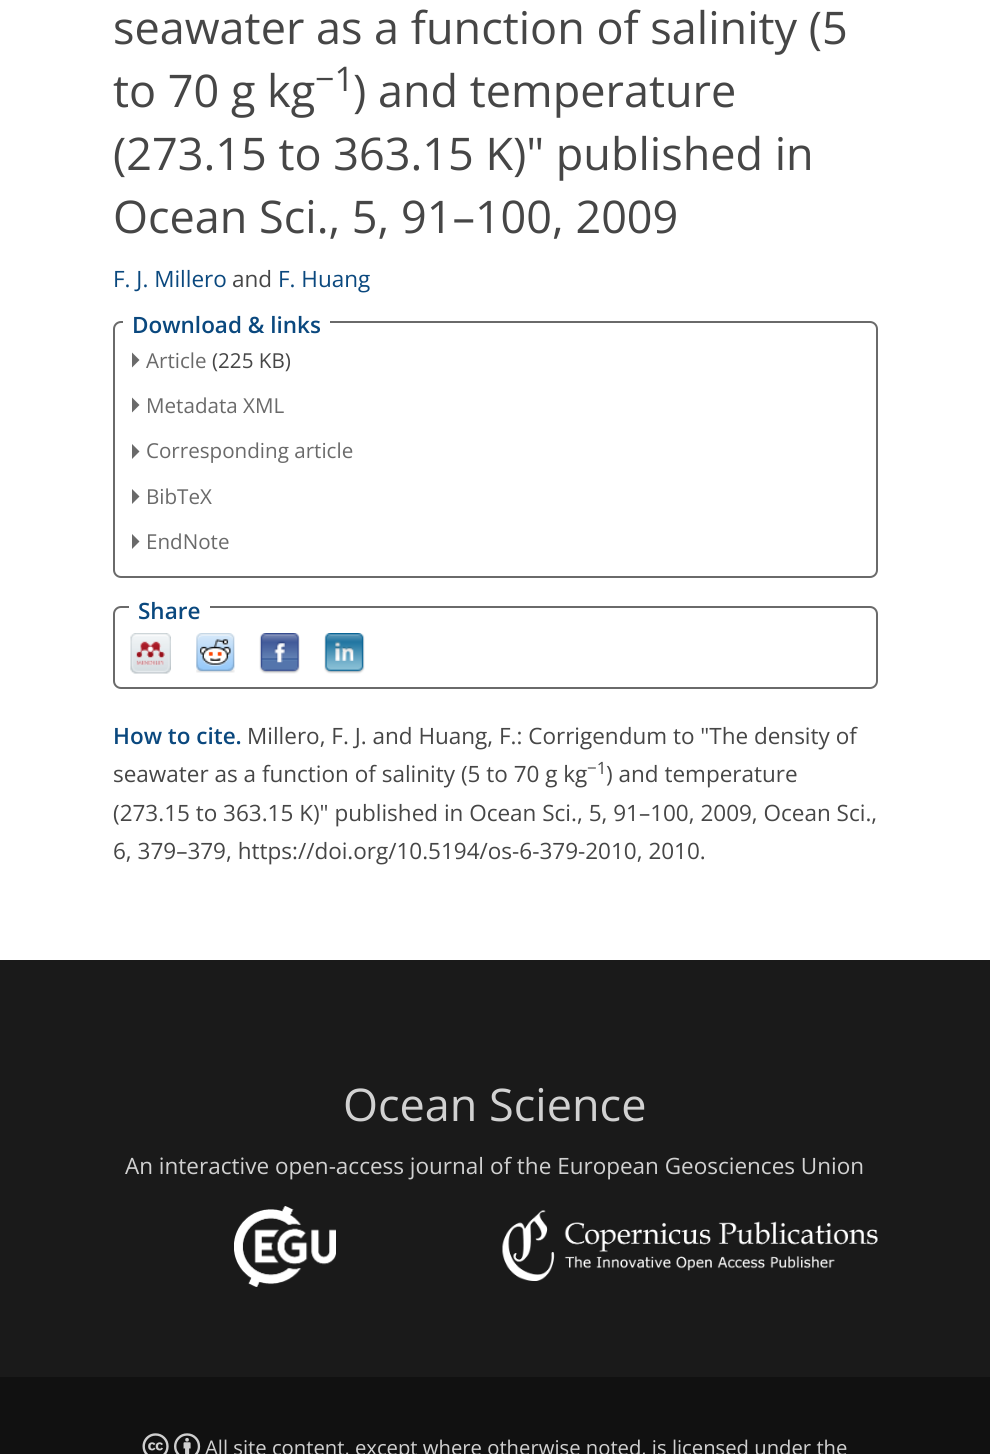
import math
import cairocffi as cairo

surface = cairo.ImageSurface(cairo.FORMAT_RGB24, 990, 1454)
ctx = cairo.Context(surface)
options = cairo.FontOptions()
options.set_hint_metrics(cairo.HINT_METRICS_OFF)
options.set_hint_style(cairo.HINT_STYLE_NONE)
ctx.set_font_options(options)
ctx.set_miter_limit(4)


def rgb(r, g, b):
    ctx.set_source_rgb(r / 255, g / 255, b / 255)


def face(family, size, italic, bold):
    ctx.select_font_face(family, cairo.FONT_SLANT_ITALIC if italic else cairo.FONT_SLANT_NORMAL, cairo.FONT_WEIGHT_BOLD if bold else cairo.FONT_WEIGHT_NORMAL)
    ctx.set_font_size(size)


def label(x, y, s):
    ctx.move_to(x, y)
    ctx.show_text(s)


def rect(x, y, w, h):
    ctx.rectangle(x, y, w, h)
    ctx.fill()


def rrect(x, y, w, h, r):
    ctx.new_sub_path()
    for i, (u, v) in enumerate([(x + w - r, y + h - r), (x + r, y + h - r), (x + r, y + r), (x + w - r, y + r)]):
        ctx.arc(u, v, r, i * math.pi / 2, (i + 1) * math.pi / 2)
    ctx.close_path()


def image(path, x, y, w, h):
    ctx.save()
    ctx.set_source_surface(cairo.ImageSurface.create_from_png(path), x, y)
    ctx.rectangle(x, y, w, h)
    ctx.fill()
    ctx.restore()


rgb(255, 255, 255)
ctx.paint()
face('Open Sans', 45, 0, 0)
rgb(70, 70, 70)
label(113, 44, 'seawater as a function of salinity (5')
label(113, 107, 'to 70 g kg')
face('Open Sans', 34, 0, 0)
label(315, 91, '−1')
face('Open Sans', 45, 0, 0)
label(353, 107, ') and temperature')
label(113, 170, '(273.15 to 363.15 K)" published in')
label(113, 233, 'Ocean Sci., 5, 91–100, 2009')
face('Open Sans', 22.5, 0, 0)
rgb(10, 72, 126)
label(113, 287, 'F. J. Millero')
rgb(70, 70, 70)
label(232, 287, 'and')
rgb(10, 72, 126)
label(278, 287, 'F. Huang')
rrect(114, 322, 763, 255, 7)
rgb(106, 106, 106)
ctx.stroke()
rgb(255, 255, 255)
rect(123, 321, 207, 2)
face('Open Sans SemiBold', 22.5, 0, 0)
rgb(10, 72, 126)
label(132, 333, 'Download & links')
rgb(106, 106, 106)
ctx.new_path()
ctx.move_to(132, 367.5)
ctx.line_to(132, 352.5)
ctx.line_to(139.5, 360)
ctx.close_path()
ctx.move_to(132, 412.5)
ctx.line_to(132, 397.5)
ctx.line_to(139.5, 405)
ctx.close_path()
ctx.fill()
face('Open Sans', 20.6, 0, 0)
label(146, 368, 'Article')
rgb(70, 70, 70)
label(212, 368, '(225 KB)')
rgb(106, 106, 106)
label(146, 413, 'Metadata XML')
ctx.new_path()
ctx.move_to(132, 459)
ctx.line_to(132, 444)
ctx.line_to(139.5, 451.5)
ctx.close_path()
ctx.move_to(132, 504)
ctx.line_to(132, 489)
ctx.line_to(139.5, 496.5)
ctx.close_path()
ctx.fill()
label(146, 458, 'Corresponding article')
label(146, 504, 'BibTeX')
ctx.new_path()
ctx.move_to(132, 549)
ctx.line_to(132, 534)
ctx.line_to(139.5, 541.5)
ctx.close_path()
ctx.fill()
label(146, 549, 'EndNote')
rrect(114, 607, 763, 81, 7)
ctx.stroke()
rgb(255, 255, 255)
rect(129, 606, 81, 2)
face('Open Sans SemiBold', 22.5, 0, 0)
rgb(10, 72, 126)
label(138, 619, 'Share')
image('image0.png', 130, 633, 41, 41)
image('image1.png', 196, 633, 39, 40)
image('image2.png', 259, 633, 41, 41)
image('image3.png', 324, 633, 41, 41)
label(113, 744, 'How to cite.')
face('Open Sans', 22.5, 0, 0)
rgb(70, 70, 70)
label(247, 744, 'Millero, F. J. and Huang, F.: Corrigendum to "The density of')
label(113, 782, 'seawater as a function of salinity (5 to 70 g kg')
face('Open Sans', 17, 0, 0)
label(587, 774, '−1')
face('Open Sans', 22.5, 0, 0)
label(606, 782, ') and temperature')
label(113, 821, '(273.15 to 363.15 K)" published in Ocean Sci., 5, 91–100, 2009, Ocean Sci.,')
label(113, 859, '6, 379–379, https://doi.org/10.5194/os-6-379-2010, 2010.')
rgb(26, 26, 26)
rect(0, 960, 990, 417)
face('Open Sans', 45, 0, 0)
rgb(209, 209, 209)
label(343, 1121, 'Ocean Science')
face('Open Sans', 22.5, 0, 0)
label(125, 1174, 'An interactive open-access journal of the European Geosciences Union')
image('image4.png', 234, 1206, 102, 81)
image('image5.png', 502, 1210, 376, 71)
rgb(17, 17, 17)
rect(0, 1377, 990, 77)
image('image6.png', 142, 1433, 27, 21)
image('image7.png', 174, 1433, 27, 21)
face('Open Sans', 20.25, 0, 0)
rgb(209, 209, 209)
label(205, 1455, 'All site content, except where otherwise noted, is licensed under the')
surface.write_to_png('render.png')
